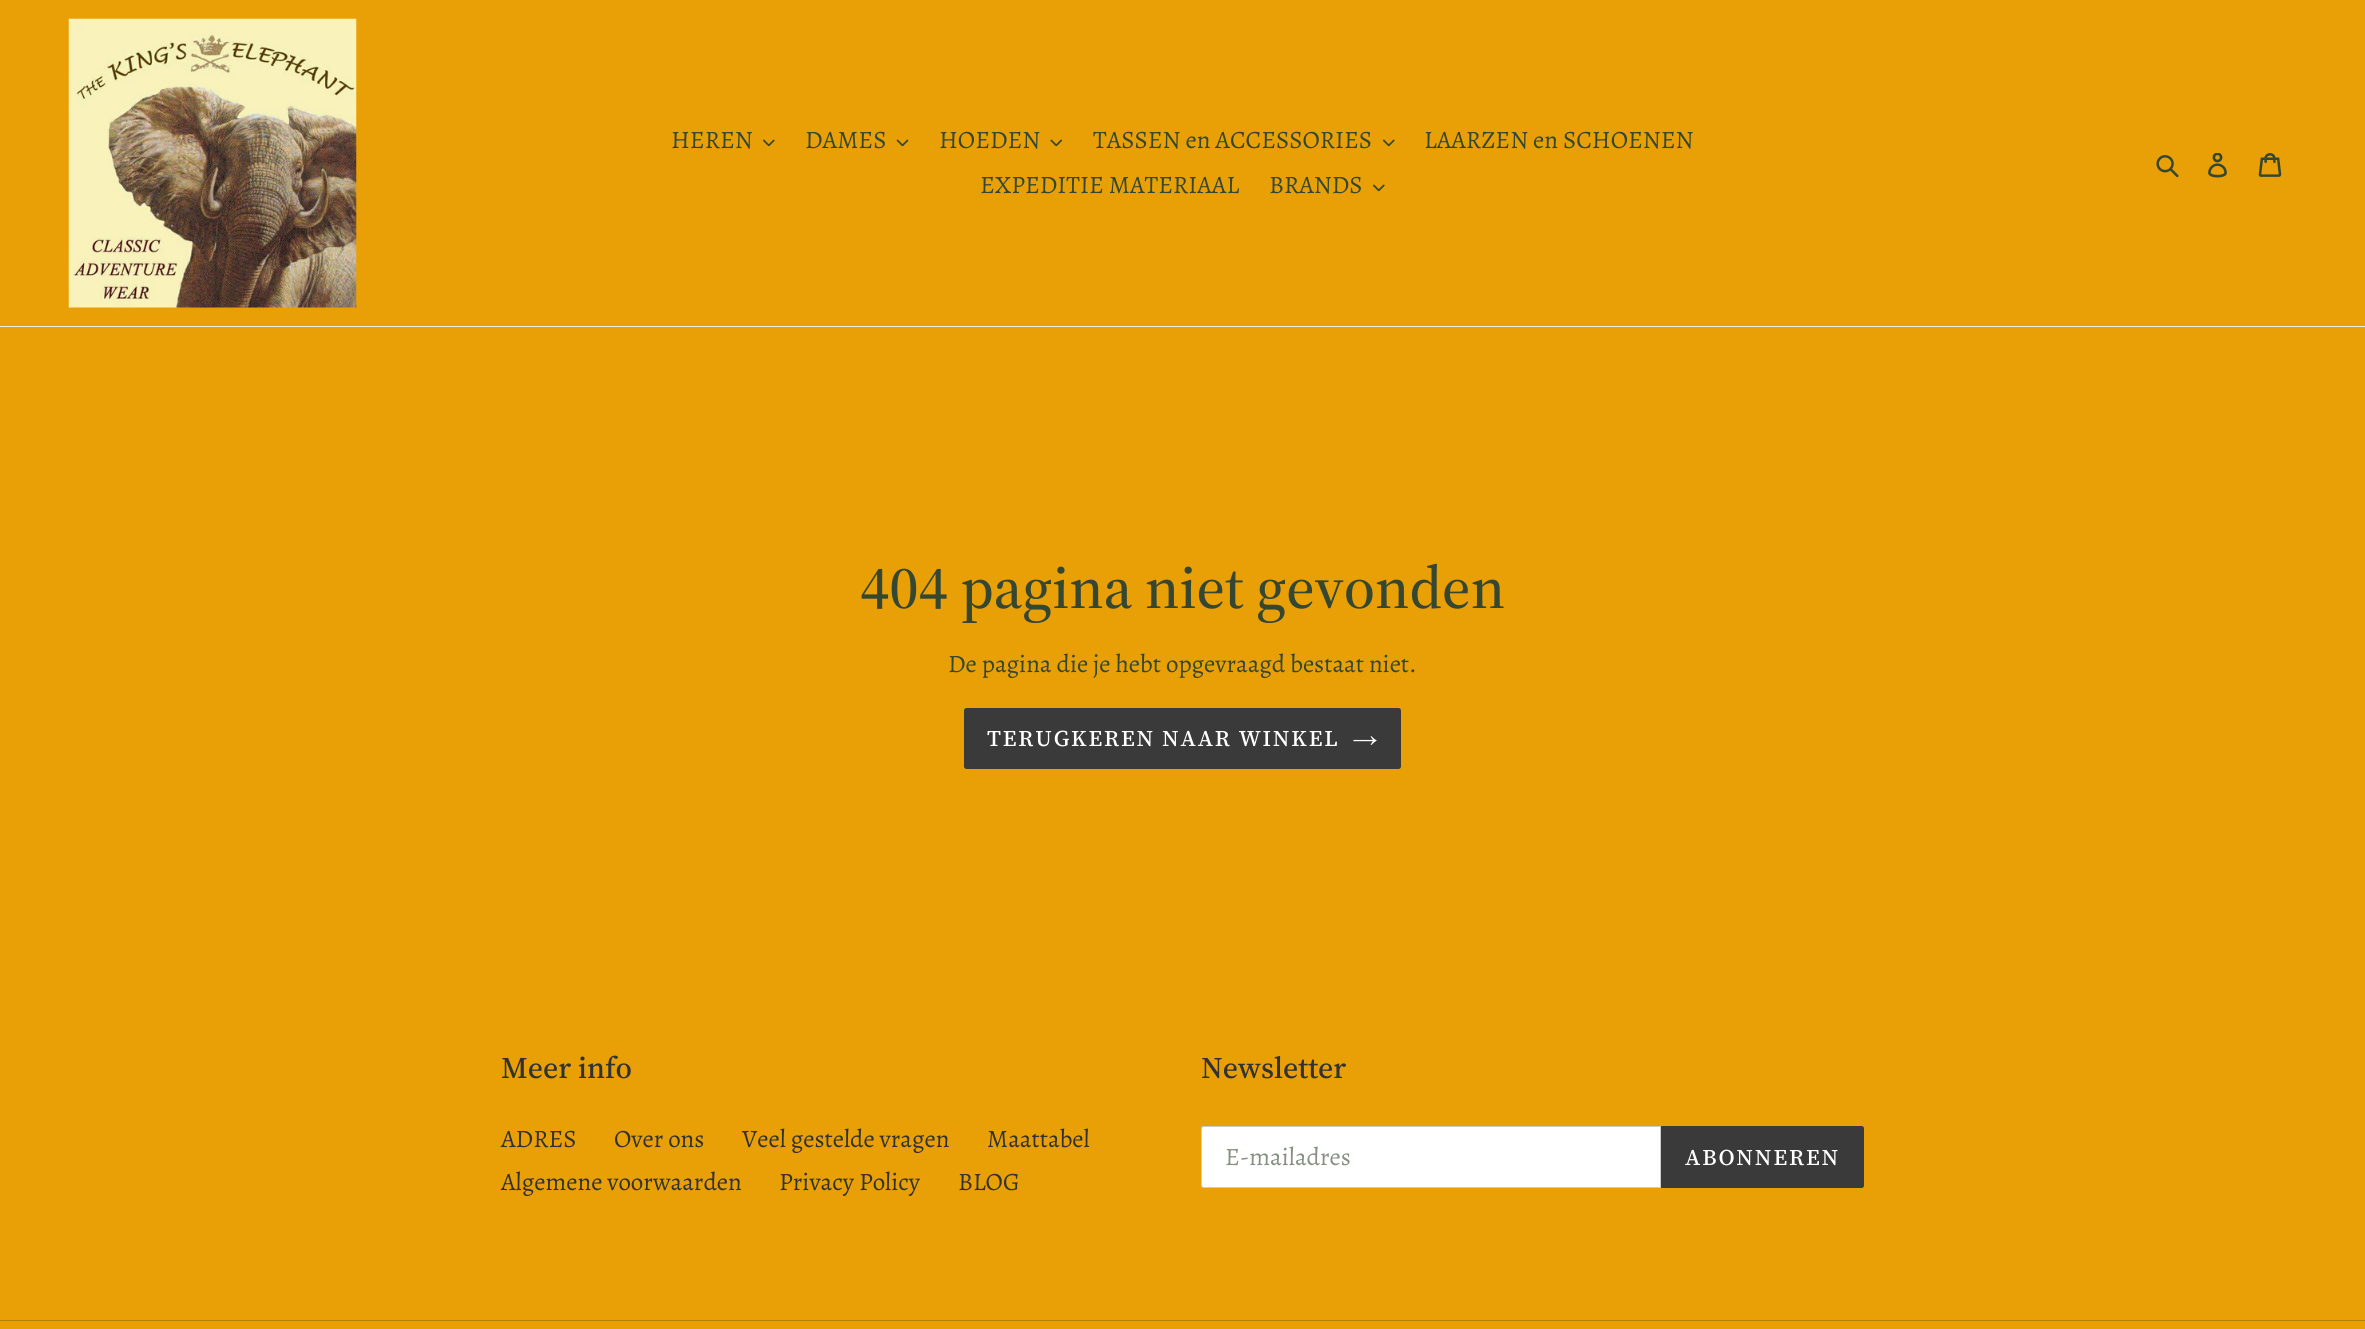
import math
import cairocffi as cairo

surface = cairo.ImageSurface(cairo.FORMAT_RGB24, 2365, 1329)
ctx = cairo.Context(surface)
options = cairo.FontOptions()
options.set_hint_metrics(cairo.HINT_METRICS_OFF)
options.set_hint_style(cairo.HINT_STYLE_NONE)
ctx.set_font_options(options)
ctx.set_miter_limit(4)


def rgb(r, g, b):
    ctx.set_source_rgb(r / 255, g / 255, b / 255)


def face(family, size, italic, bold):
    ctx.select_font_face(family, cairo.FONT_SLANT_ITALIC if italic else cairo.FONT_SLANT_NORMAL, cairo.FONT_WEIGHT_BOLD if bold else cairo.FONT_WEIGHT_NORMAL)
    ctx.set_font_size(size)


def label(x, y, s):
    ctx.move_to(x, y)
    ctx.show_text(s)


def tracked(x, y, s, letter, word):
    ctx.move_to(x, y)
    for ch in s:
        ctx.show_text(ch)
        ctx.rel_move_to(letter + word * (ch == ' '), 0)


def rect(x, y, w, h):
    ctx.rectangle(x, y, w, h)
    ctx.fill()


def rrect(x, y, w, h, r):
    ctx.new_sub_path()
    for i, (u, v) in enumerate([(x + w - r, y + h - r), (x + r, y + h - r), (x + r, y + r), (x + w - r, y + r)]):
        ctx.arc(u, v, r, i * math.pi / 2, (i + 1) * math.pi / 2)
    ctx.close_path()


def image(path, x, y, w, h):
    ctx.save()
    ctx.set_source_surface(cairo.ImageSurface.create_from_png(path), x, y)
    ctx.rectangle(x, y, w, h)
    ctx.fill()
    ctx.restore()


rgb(233, 160, 7)
ctx.paint()
rgb(235, 235, 235)
rect(0, 326, 2365, 1)
image('image0.png', 68, 18, 289, 290)
face('Alegreya', 25, 0, 0)
rgb(53, 71, 48)
label(671, 148, 'HEREN')
image('image1.png', 763, 139, 12, 8)
label(805, 148, 'DAMES')
image('image2.png', 896, 139, 13, 8)
label(939, 148, 'HOEDEN')
image('image3.png', 1050, 139, 13, 8)
label(1093, 148, 'TASSEN en ACCESSORIES')
image('image1.png', 1383, 139, 12, 8)
label(1424, 148, 'LAARZEN en SCHOENEN')
label(980, 193, 'EXPEDITIE MATERIAAL')
label(1269, 193, 'BRANDS')
image('image1.png', 1373, 184, 12, 8)
image('image4.png', 2156, 155, 23, 23)
image('image5.png', 2208, 153, 19, 25)
image('image6.png', 2258, 153, 24, 24)
face('Source Serif 4 Medium', 60, 0, 0)
label(860, 608, '404 pagina niet gevonden')
face('Alegreya', 25, 0, 0)
label(948, 672, 'De pagina die je hebt opgevraagd bestaat niet.')
rgb(58, 58, 58)
rrect(964, 708, 437, 61, 2.5)
ctx.fill()
face('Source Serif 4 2 Medium', 22.5, 0, 0)
rgb(255, 255, 255)
tracked(987, 746, 'TERUGKEREN NAAR WINKEL', 1.8, 0)
image('image7.png', 1353, 736, 24, 9)
face('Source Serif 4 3 Medium', 30, 0, 0)
rgb(51, 50, 50)
label(501, 1078, 'Meer info')
face('Alegreya', 25, 0, 0)
label(501, 1147, 'ADRES')
label(614, 1147, 'Over ons')
label(742, 1147, 'Veel gestelde vragen')
label(987, 1147, 'Maattabel')
label(501, 1190, 'Algemene voorwaarden')
label(779, 1190, 'Privacy Policy')
label(958, 1190, 'BLOG')
face('Source Serif 4 3 Medium', 30, 0, 0)
label(1201, 1078, 'Newsletter')
rgb(255, 255, 255)
ctx.new_path()
ctx.move_to(1203.5, 1126.5)
ctx.line_to(1660.5, 1126.5)
ctx.line_to(1660.5, 1187.5)
ctx.line_to(1203.5, 1187.5)
ctx.curve_to(1202.5, 1187.5, 1201.5, 1186.5, 1201.5, 1185.5)
ctx.line_to(1201.5, 1128.5)
ctx.curve_to(1201.5, 1127.5, 1202.5, 1126.5, 1203.5, 1126.5)
ctx.close_path()
ctx.fill_preserve()
rgb(204, 204, 204)
ctx.set_line_width(1)
ctx.stroke()
face('Alegreya', 25, 0, 0)
rgb(134, 145, 131)
label(1225, 1165, 'E-mailadres')
rgb(58, 58, 58)
ctx.new_path()
ctx.move_to(1661, 1126)
ctx.line_to(1861.5, 1126)
ctx.curve_to(1863, 1126, 1864, 1127, 1864, 1128.5)
ctx.line_to(1864, 1185.5)
ctx.curve_to(1864, 1187, 1863, 1188, 1861.5, 1188)
ctx.line_to(1661, 1188)
ctx.close_path()
ctx.fill()
face('Source Serif 4 2 Medium', 22.5, 0, 0)
rgb(255, 255, 255)
tracked(1685, 1165, 'ABONNEREN', 1.8, 0)
rgb(183, 126, 6)
rect(0, 1320, 2365, 1)
surface.write_to_png('render.png')
